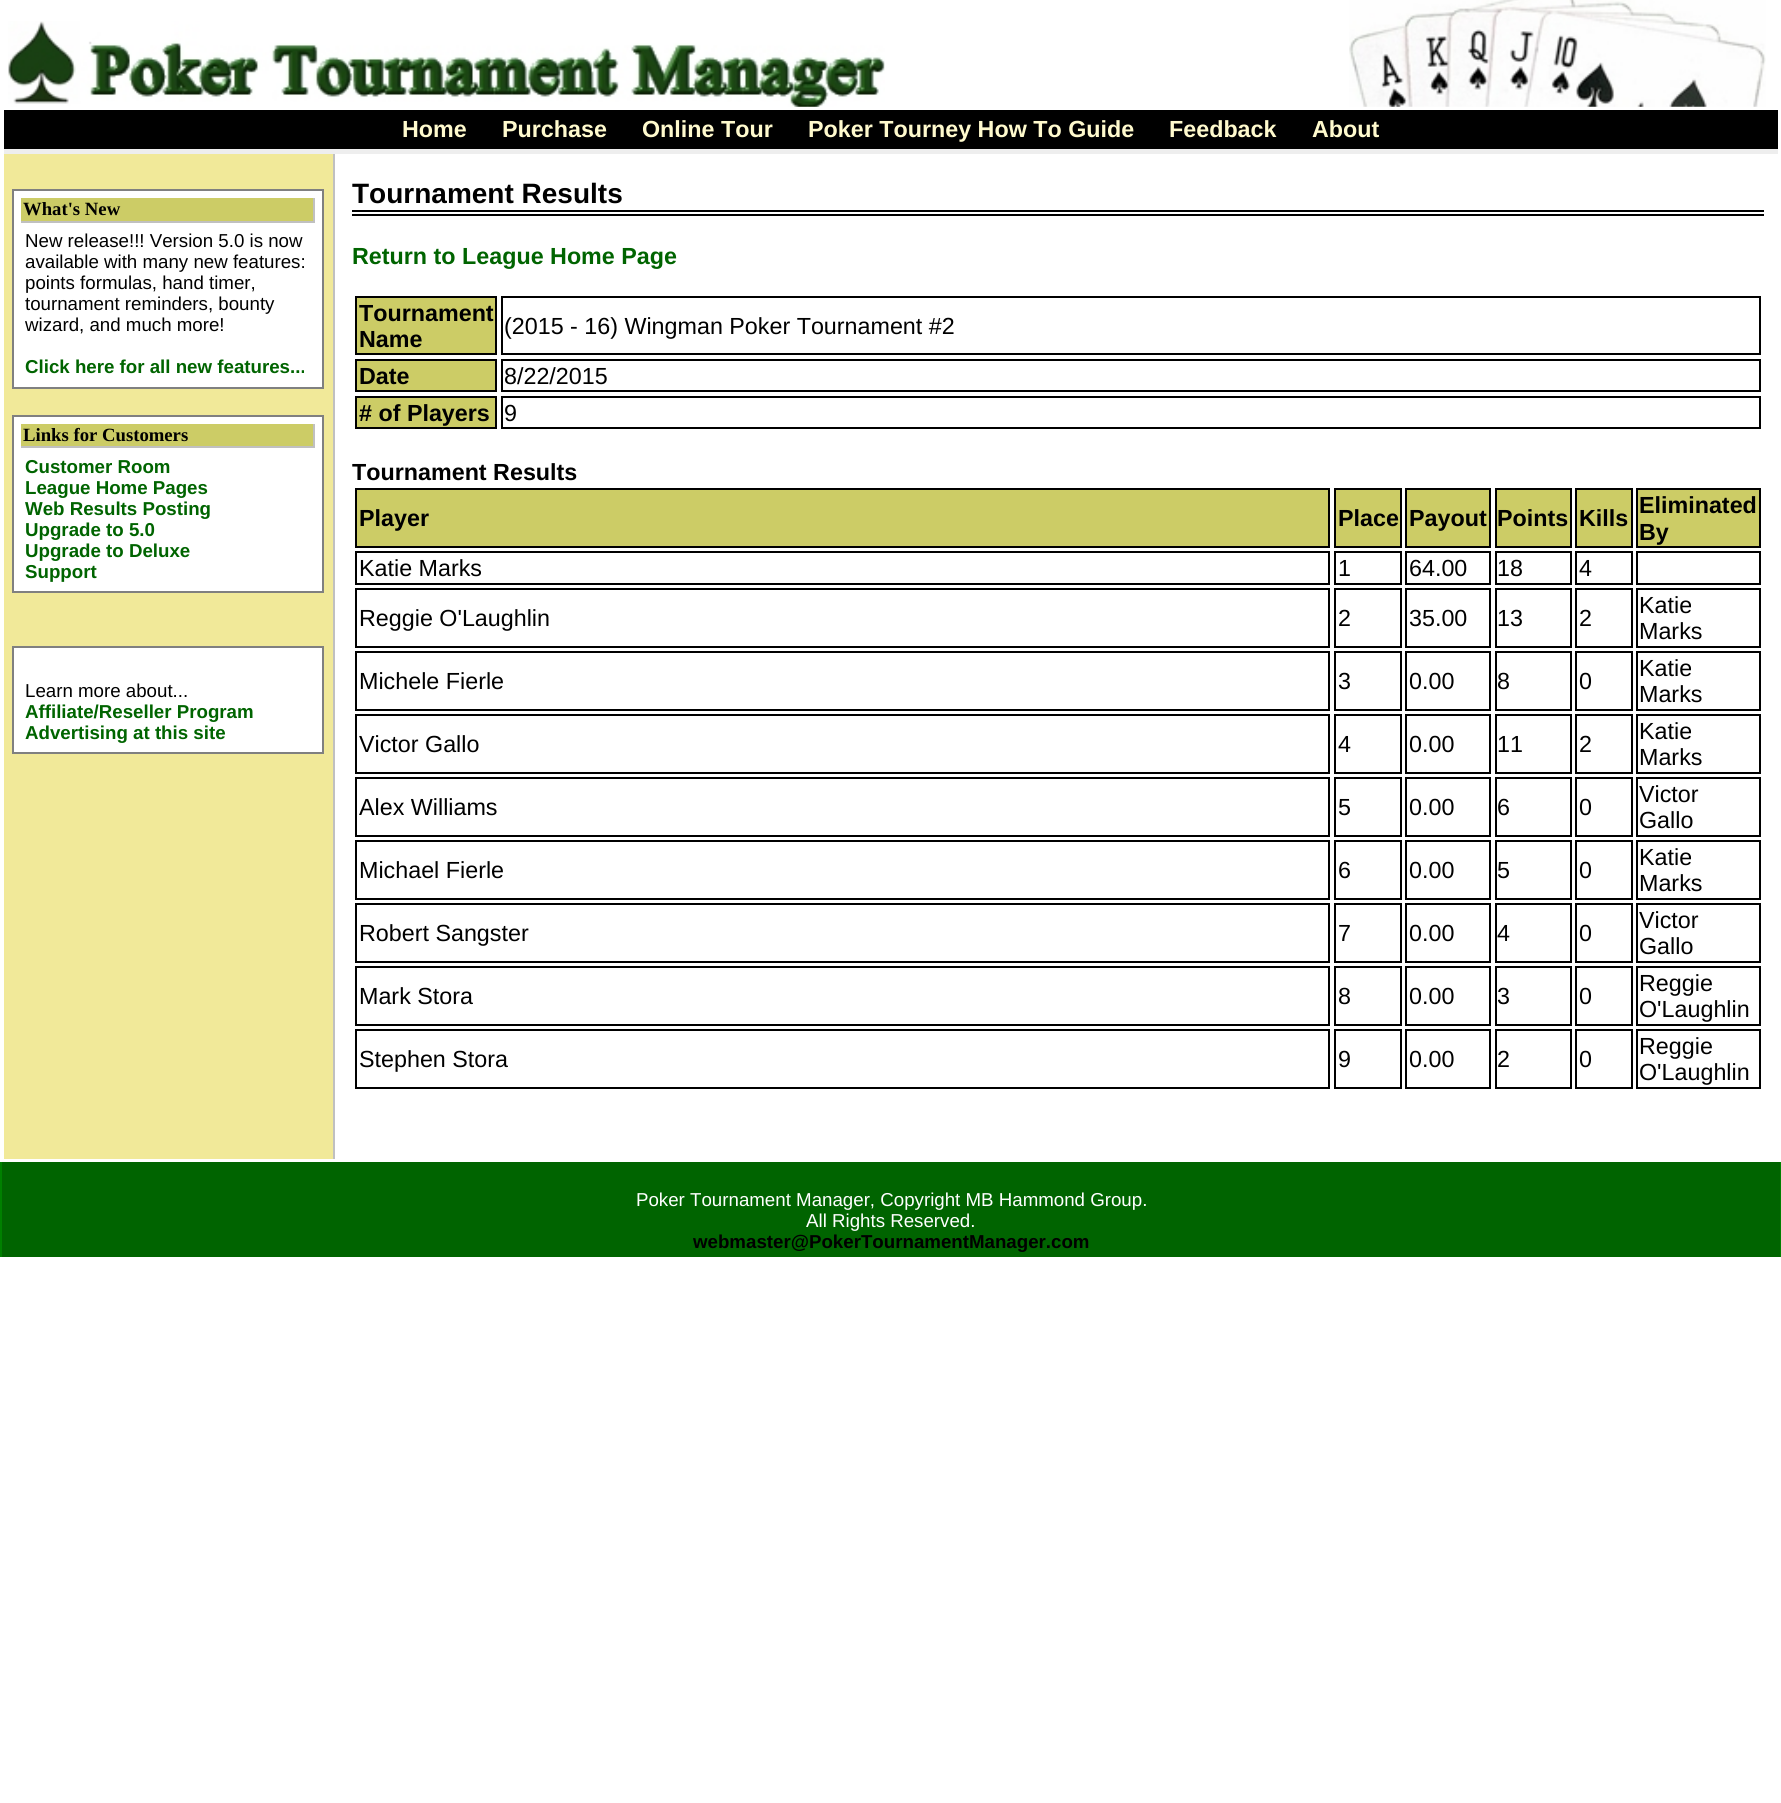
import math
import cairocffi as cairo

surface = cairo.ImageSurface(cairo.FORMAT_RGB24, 1781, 1803)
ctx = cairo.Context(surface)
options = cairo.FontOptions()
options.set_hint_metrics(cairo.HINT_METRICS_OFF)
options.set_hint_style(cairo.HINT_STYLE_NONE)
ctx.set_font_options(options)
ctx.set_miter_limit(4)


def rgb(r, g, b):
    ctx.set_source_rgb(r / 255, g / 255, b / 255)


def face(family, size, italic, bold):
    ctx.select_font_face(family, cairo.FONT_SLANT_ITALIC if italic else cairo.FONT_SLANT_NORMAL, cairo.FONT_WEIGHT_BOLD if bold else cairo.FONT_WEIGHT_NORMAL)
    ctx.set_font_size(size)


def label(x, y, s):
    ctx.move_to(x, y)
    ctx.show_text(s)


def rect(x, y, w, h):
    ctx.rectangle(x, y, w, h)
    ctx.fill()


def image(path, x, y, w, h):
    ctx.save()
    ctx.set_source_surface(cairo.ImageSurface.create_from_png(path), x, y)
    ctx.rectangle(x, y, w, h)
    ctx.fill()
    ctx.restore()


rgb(255, 255, 255)
ctx.paint()
image('image0.png', 8, 21, 877, 86)
image('image1.png', 1349, 0, 417, 107)
rgb(0, 0, 0)
rect(4, 110, 1774, 39)
rgb(238, 238, 238)
rect(4, 149, 1774, 5)
face('Liberation Sans', 23.3, 0, 1)
rgb(255, 250, 205)
label(402, 137, 'Home')
label(502, 137, 'Purchase')
label(642, 137, 'Online Tour')
label(808, 137, 'Poker Tourney How To Guide')
label(1169, 137, 'Feedback')
label(1312, 137, 'About')
rgb(241, 233, 153)
rect(4, 154, 329, 1005)
rgb(192, 192, 192)
rect(333, 154, 2, 1005)
rgb(255, 255, 255)
ctx.rectangle(13, 190, 310, 198)
ctx.fill_preserve()
rgb(128, 128, 128)
ctx.stroke()
rgb(204, 204, 102)
rect(21, 198, 292, 23)
rgb(192, 192, 192)
rect(313, 198, 2, 24)
rect(21, 221, 294, 2)
face('Liberation Serif', 18.7, 0, 1)
rgb(0, 0, 0)
label(23, 215, 'What\'s New')
face('Liberation Sans', 18.7, 0, 0)
label(25, 247, 'New release!!! Version 5.0 is now')
label(25, 268, 'available with many new features:')
label(25, 289, 'points formulas, hand timer,')
label(25, 310, 'tournament reminders, bounty')
label(25, 331, 'wizard, and much more!')
face('Liberation Sans', 18.7, 0, 1)
rgb(0, 100, 0)
label(25, 373, 'Click here for all new features...')
rgb(255, 255, 255)
ctx.rectangle(13, 416, 310, 176)
ctx.fill_preserve()
rgb(128, 128, 128)
ctx.stroke()
rgb(204, 204, 102)
rect(21, 424, 292, 22)
rgb(192, 192, 192)
rect(313, 424, 2, 24)
rect(21, 446, 294, 2)
face('Liberation Serif', 18.7, 0, 1)
rgb(0, 0, 0)
label(23, 441, 'Links for Customers')
face('Liberation Sans', 18.7, 0, 1)
rgb(0, 100, 0)
label(25, 473, 'Customer Room')
label(25, 494, 'League Home Pages')
label(25, 515, 'Web Results Posting')
label(25, 536, 'Upgrade to 5.0')
label(25, 557, 'Upgrade to Deluxe')
label(25, 578, 'Support')
rgb(255, 255, 255)
ctx.rectangle(13, 647, 310, 106)
ctx.fill_preserve()
rgb(128, 128, 128)
ctx.stroke()
face('Liberation Sans', 18.7, 0, 0)
rgb(0, 0, 0)
label(25, 697, 'Learn more about...')
face('Liberation Sans', 18.7, 0, 1)
rgb(0, 100, 0)
label(25, 718, 'Affiliate/Reseller Program')
label(25, 739, 'Advertising at this site')
rgb(0, 0, 0)
rect(352, 210, 1412, 2)
rect(352, 214, 1412, 2)
face('Liberation Sans', 28, 0, 1)
label(352, 203, 'Tournament Results')
face('Liberation Sans', 23.3, 0, 1)
rgb(0, 100, 0)
label(352, 264, 'Return to League Home Page')
rgb(204, 204, 102)
ctx.rectangle(356, 297, 140, 57)
ctx.fill_preserve()
rgb(0, 0, 0)
ctx.stroke()
label(359, 321, 'Tournament')
label(359, 347, 'Name')
ctx.rectangle(502, 297, 1258, 57)
ctx.stroke()
face('Liberation Sans', 23.3, 0, 0)
label(504, 334, '(2015 - 16) Wingman Poker Tournament #2')
rgb(204, 204, 102)
ctx.rectangle(356, 360, 140, 31)
ctx.fill_preserve()
rgb(0, 0, 0)
ctx.stroke()
face('Liberation Sans', 23.3, 0, 1)
label(359, 384, 'Date')
ctx.rectangle(502, 360, 1258, 31)
ctx.stroke()
face('Liberation Sans', 23.3, 0, 0)
label(504, 384, '8/22/2015')
rgb(204, 204, 102)
ctx.rectangle(356, 397, 140, 31)
ctx.fill_preserve()
rgb(0, 0, 0)
ctx.stroke()
face('Liberation Sans', 23.3, 0, 1)
label(359, 421, '# of Players')
ctx.rectangle(502, 397, 1258, 31)
ctx.stroke()
face('Liberation Sans', 23.3, 0, 0)
label(504, 421, '9')
face('Liberation Sans', 23.3, 0, 1)
label(352, 480, 'Tournament Results')
rgb(204, 204, 102)
ctx.rectangle(356, 489, 973, 58)
ctx.fill_preserve()
rgb(0, 0, 0)
ctx.stroke()
label(359, 526, 'Player')
rgb(204, 204, 102)
ctx.rectangle(1335, 489, 66, 58)
ctx.fill_preserve()
rgb(0, 0, 0)
ctx.stroke()
label(1338, 526, 'Place')
rgb(204, 204, 102)
ctx.rectangle(1406, 489, 84, 58)
ctx.fill_preserve()
rgb(0, 0, 0)
ctx.stroke()
label(1409, 526, 'Payout')
rgb(204, 204, 102)
ctx.rectangle(1496, 489, 75, 58)
ctx.fill_preserve()
rgb(0, 0, 0)
ctx.stroke()
label(1497, 526, 'Points')
rgb(204, 204, 102)
ctx.rectangle(1576, 489, 56, 58)
ctx.fill_preserve()
rgb(0, 0, 0)
ctx.stroke()
label(1579, 526, 'Kills')
rgb(204, 204, 102)
ctx.rectangle(1637, 489, 123, 58)
ctx.fill_preserve()
rgb(0, 0, 0)
ctx.stroke()
label(1639, 513, 'Eliminated')
label(1639, 540, 'By')
ctx.rectangle(356, 552, 973, 32)
ctx.stroke()
face('Liberation Sans', 23.3, 0, 0)
label(359, 576, 'Katie Marks')
ctx.rectangle(1335, 552, 66, 32)
ctx.stroke()
label(1338, 576, '1')
ctx.rectangle(1406, 552, 84, 32)
ctx.stroke()
label(1409, 576, '64.00')
ctx.rectangle(1496, 552, 75, 32)
ctx.stroke()
label(1497, 576, '18')
ctx.rectangle(1576, 552, 56, 32)
ctx.stroke()
label(1579, 576, '4')
ctx.rectangle(1637, 552, 123, 32)
ctx.stroke()
ctx.rectangle(356, 589, 973, 58)
ctx.stroke()
label(359, 626, 'Reggie O\'Laughlin')
ctx.rectangle(1335, 589, 66, 58)
ctx.stroke()
label(1338, 626, '2')
ctx.rectangle(1406, 589, 84, 58)
ctx.stroke()
label(1409, 626, '35.00')
ctx.rectangle(1496, 589, 75, 58)
ctx.stroke()
label(1497, 626, '13')
ctx.rectangle(1576, 589, 56, 58)
ctx.stroke()
label(1579, 626, '2')
ctx.rectangle(1637, 589, 123, 58)
ctx.stroke()
label(1639, 613, 'Katie')
label(1639, 639, 'Marks')
ctx.rectangle(356, 652, 973, 58)
ctx.stroke()
label(359, 689, 'Michele Fierle')
ctx.rectangle(1335, 652, 66, 58)
ctx.stroke()
label(1338, 689, '3')
ctx.rectangle(1406, 652, 84, 58)
ctx.stroke()
label(1409, 689, '0.00')
ctx.rectangle(1496, 652, 75, 58)
ctx.stroke()
label(1497, 689, '8')
ctx.rectangle(1576, 652, 56, 58)
ctx.stroke()
label(1579, 689, '0')
ctx.rectangle(1637, 652, 123, 58)
ctx.stroke()
label(1639, 676, 'Katie')
label(1639, 702, 'Marks')
ctx.rectangle(356, 715, 973, 58)
ctx.stroke()
label(359, 752, 'Victor Gallo')
ctx.rectangle(1335, 715, 66, 58)
ctx.stroke()
label(1338, 752, '4')
ctx.rectangle(1406, 715, 84, 58)
ctx.stroke()
label(1409, 752, '0.00')
ctx.rectangle(1496, 715, 75, 58)
ctx.stroke()
label(1497, 752, '11')
ctx.rectangle(1576, 715, 56, 58)
ctx.stroke()
label(1579, 752, '2')
ctx.rectangle(1637, 715, 123, 58)
ctx.stroke()
label(1639, 739, 'Katie')
label(1639, 765, 'Marks')
ctx.rectangle(356, 778, 973, 58)
ctx.stroke()
label(359, 815, 'Alex Williams')
ctx.rectangle(1335, 778, 66, 58)
ctx.stroke()
label(1338, 815, '5')
ctx.rectangle(1406, 778, 84, 58)
ctx.stroke()
label(1409, 815, '0.00')
ctx.rectangle(1496, 778, 75, 58)
ctx.stroke()
label(1497, 815, '6')
ctx.rectangle(1576, 778, 56, 58)
ctx.stroke()
label(1579, 815, '0')
ctx.rectangle(1637, 778, 123, 58)
ctx.stroke()
label(1639, 802, 'Victor')
label(1639, 828, 'Gallo')
ctx.rectangle(356, 841, 973, 58)
ctx.stroke()
label(359, 878, 'Michael Fierle')
ctx.rectangle(1335, 841, 66, 58)
ctx.stroke()
label(1338, 878, '6')
ctx.rectangle(1406, 841, 84, 58)
ctx.stroke()
label(1409, 878, '0.00')
ctx.rectangle(1496, 841, 75, 58)
ctx.stroke()
label(1497, 878, '5')
ctx.rectangle(1576, 841, 56, 58)
ctx.stroke()
label(1579, 878, '0')
ctx.rectangle(1637, 841, 123, 58)
ctx.stroke()
label(1639, 865, 'Katie')
label(1639, 891, 'Marks')
ctx.rectangle(356, 904, 973, 58)
ctx.stroke()
label(359, 941, 'Robert Sangster')
ctx.rectangle(1335, 904, 66, 58)
ctx.stroke()
label(1338, 941, '7')
ctx.rectangle(1406, 904, 84, 58)
ctx.stroke()
label(1409, 941, '0.00')
ctx.rectangle(1496, 904, 75, 58)
ctx.stroke()
label(1497, 941, '4')
ctx.rectangle(1576, 904, 56, 58)
ctx.stroke()
label(1579, 941, '0')
ctx.rectangle(1637, 904, 123, 58)
ctx.stroke()
label(1639, 928, 'Victor')
label(1639, 954, 'Gallo')
ctx.rectangle(356, 967, 973, 58)
ctx.stroke()
label(359, 1004, 'Mark Stora')
ctx.rectangle(1335, 967, 66, 58)
ctx.stroke()
label(1338, 1004, '8')
ctx.rectangle(1406, 967, 84, 58)
ctx.stroke()
label(1409, 1004, '0.00')
ctx.rectangle(1496, 967, 75, 58)
ctx.stroke()
label(1497, 1004, '3')
ctx.rectangle(1576, 967, 56, 58)
ctx.stroke()
label(1579, 1004, '0')
ctx.rectangle(1637, 967, 123, 58)
ctx.stroke()
label(1639, 991, 'Reggie')
label(1639, 1017, 'O\'Laughlin')
ctx.rectangle(356, 1030, 973, 58)
ctx.stroke()
label(359, 1067, 'Stephen Stora')
ctx.rectangle(1335, 1030, 66, 58)
ctx.stroke()
label(1338, 1067, '9')
ctx.rectangle(1406, 1030, 84, 58)
ctx.stroke()
label(1409, 1067, '0.00')
ctx.rectangle(1496, 1030, 75, 58)
ctx.stroke()
label(1497, 1067, '2')
ctx.rectangle(1576, 1030, 56, 58)
ctx.stroke()
label(1579, 1067, '0')
ctx.rectangle(1637, 1030, 123, 58)
ctx.stroke()
label(1639, 1054, 'Reggie')
label(1639, 1080, 'O\'Laughlin')
rgb(0, 100, 0)
rect(2, 1162, 1778, 95)
rgb(0, 128, 0)
rect(1780, 1162, 1, 95)
rect(0, 1162, 2, 95)
face('Liberation Sans', 18.7, 0, 0)
rgb(255, 255, 255)
label(636, 1206, 'Poker Tournament Manager, Copyright MB Hammond Group.')
label(806, 1227, 'All Rights Reserved.')
face('Liberation Sans', 18.7, 0, 1)
rgb(0, 0, 0)
label(693, 1248, 'webmaster@PokerTournamentManager.com')
surface.write_to_png('render.png')
